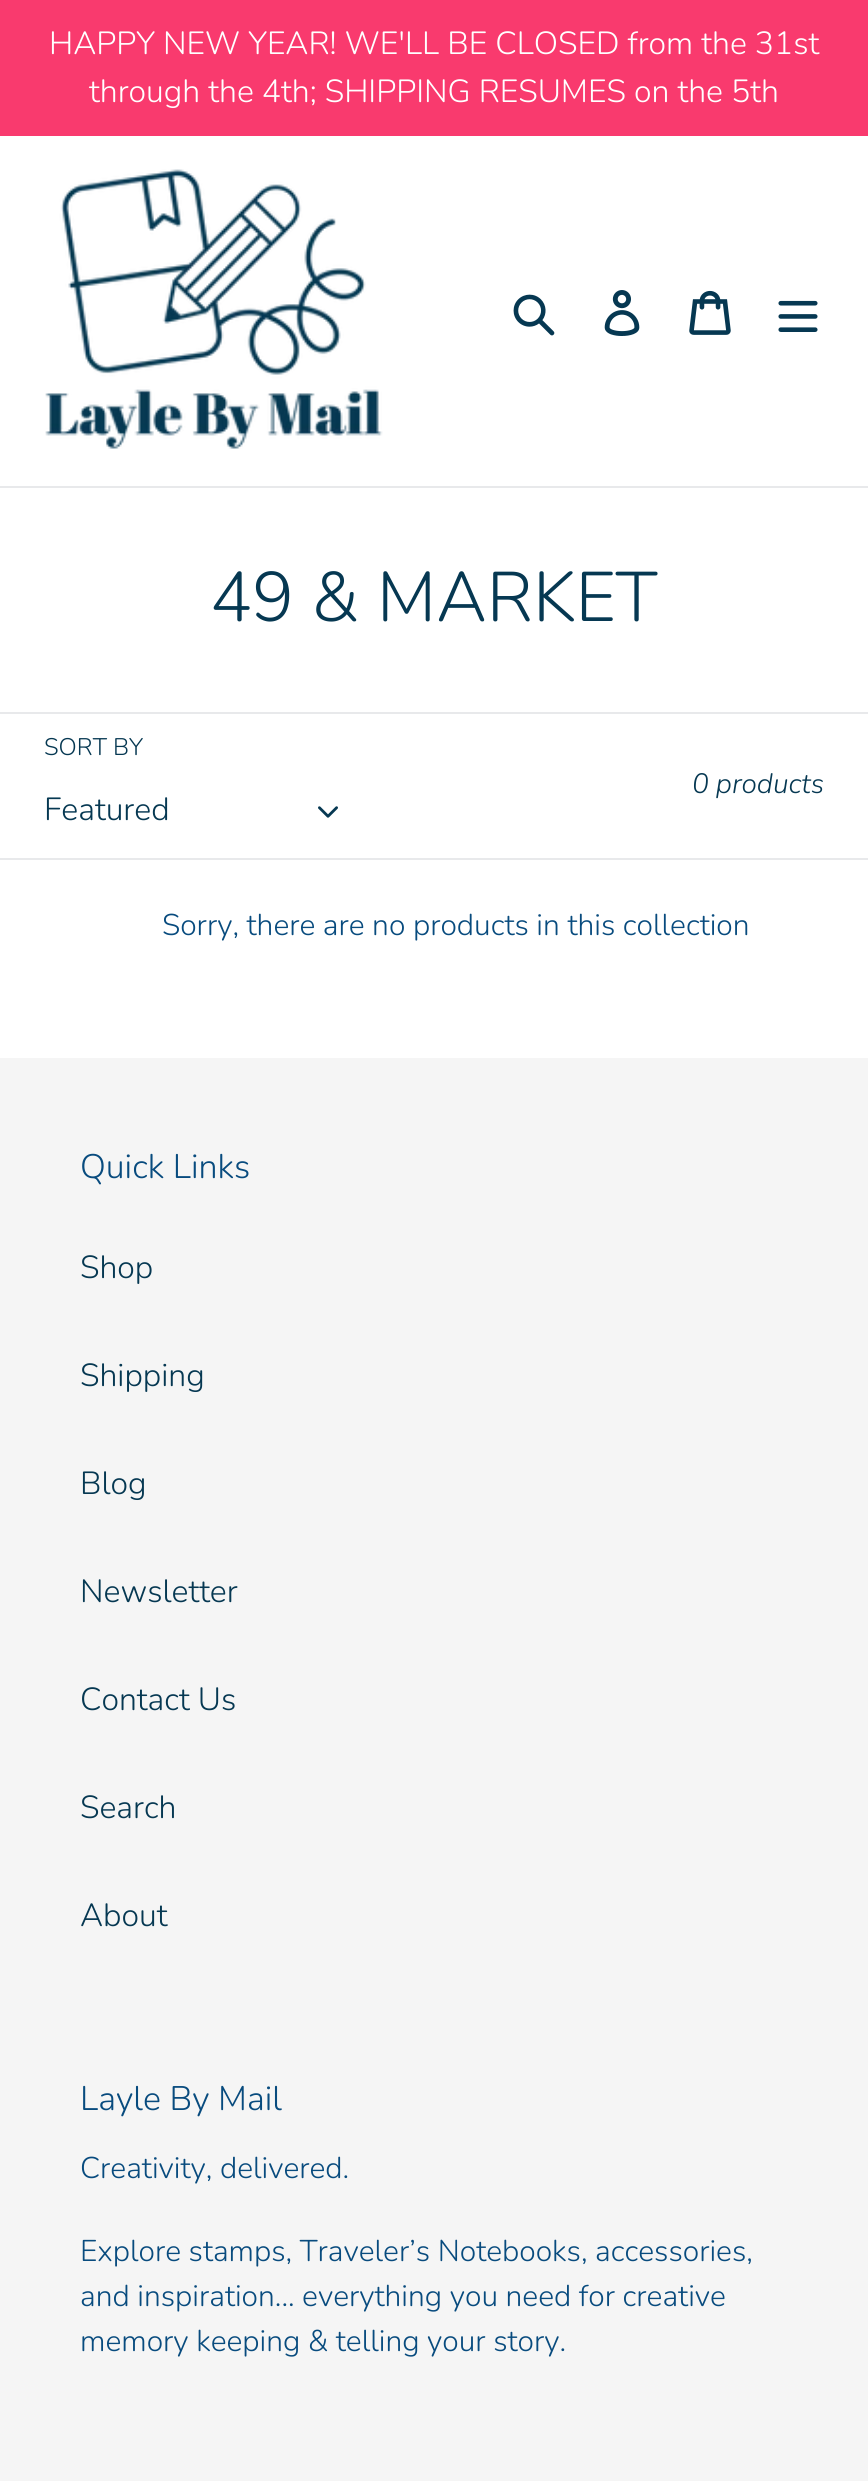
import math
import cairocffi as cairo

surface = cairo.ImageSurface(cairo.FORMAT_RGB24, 868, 2481)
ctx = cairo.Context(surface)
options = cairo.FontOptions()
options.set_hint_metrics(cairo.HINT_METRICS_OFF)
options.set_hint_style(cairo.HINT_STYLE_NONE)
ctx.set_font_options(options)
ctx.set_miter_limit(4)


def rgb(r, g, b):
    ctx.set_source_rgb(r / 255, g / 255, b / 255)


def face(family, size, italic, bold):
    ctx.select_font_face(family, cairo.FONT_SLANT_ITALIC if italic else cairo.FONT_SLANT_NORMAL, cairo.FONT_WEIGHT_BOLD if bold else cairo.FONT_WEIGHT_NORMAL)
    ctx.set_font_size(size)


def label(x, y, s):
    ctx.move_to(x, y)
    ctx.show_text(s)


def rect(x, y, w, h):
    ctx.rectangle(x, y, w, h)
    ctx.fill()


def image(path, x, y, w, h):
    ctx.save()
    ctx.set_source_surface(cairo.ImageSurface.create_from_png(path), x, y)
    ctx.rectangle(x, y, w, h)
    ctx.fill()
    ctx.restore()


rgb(255, 255, 255)
ctx.paint()
rgb(249, 58, 110)
rect(0, 0, 868, 136)
face('Nunito Light', 32, 0, 0)
rgb(255, 255, 255)
label(49, 54, 'HAPPY NEW YEAR! WE\'LL BE CLOSED from the 31st')
label(89, 102, 'through the 4th; SHIPPING RESUMES on the 5th')
rgb(232, 233, 235)
rect(0, 486, 868, 2)
image('image0.png', 45, 169, 338, 280)
image('image1.png', 513, 294, 42, 42)
image('image2.png', 604, 290, 36, 46)
image('image3.png', 689, 290, 42, 45)
image('image4.png', 778, 300, 40, 32)
face('Nunito Light', 70, 0, 0)
rgb(6, 56, 82)
label(210, 621, '49 & MARKET')
rgb(232, 233, 235)
rect(0, 712, 868, 2)
rect(0, 858, 868, 2)
face('Nunito Light', 24, 0, 0)
rgb(6, 56, 82)
label(44, 755, 'SORT BY')
face('Nunito Light', 32, 0, 0)
label(44, 820, 'Featured')
image('image5.png', 318, 806, 20, 12)
face('Nunito Light', 28, 1, 0)
label(692, 793, '0 products')
face('Nunito Light', 30, 0, 0)
rgb(8, 75, 126)
label(162, 935, 'Sorry, there are no products in this collection')
rgb(245, 245, 245)
rect(0, 1058, 868, 1423)
face('Nunito Light', 34, 0, 0)
rgb(8, 75, 126)
label(80, 1178, 'Quick Links')
face('Nunito Light', 32, 0, 0)
rgb(6, 56, 82)
label(80, 1278, 'Shop')
label(80, 1386, 'Shipping')
label(80, 1494, 'Blog')
label(80, 1602, 'Newsletter')
label(80, 1710, 'Contact Us')
label(80, 1818, 'Search')
label(80, 1926, 'About')
face('Nunito Light', 34, 0, 0)
rgb(8, 75, 126)
label(80, 2110, 'Layle By Mail')
face('Nunito Light', 30, 0, 0)
label(80, 2178, 'Creativity, delivered.')
label(80, 2261, 'Explore stamps, Traveler’s Notebooks, accessories,')
label(80, 2306, 'and inspiration... everything you need for creative')
label(80, 2351, 'memory keeping & telling your story.')
surface.write_to_png('render.png')
